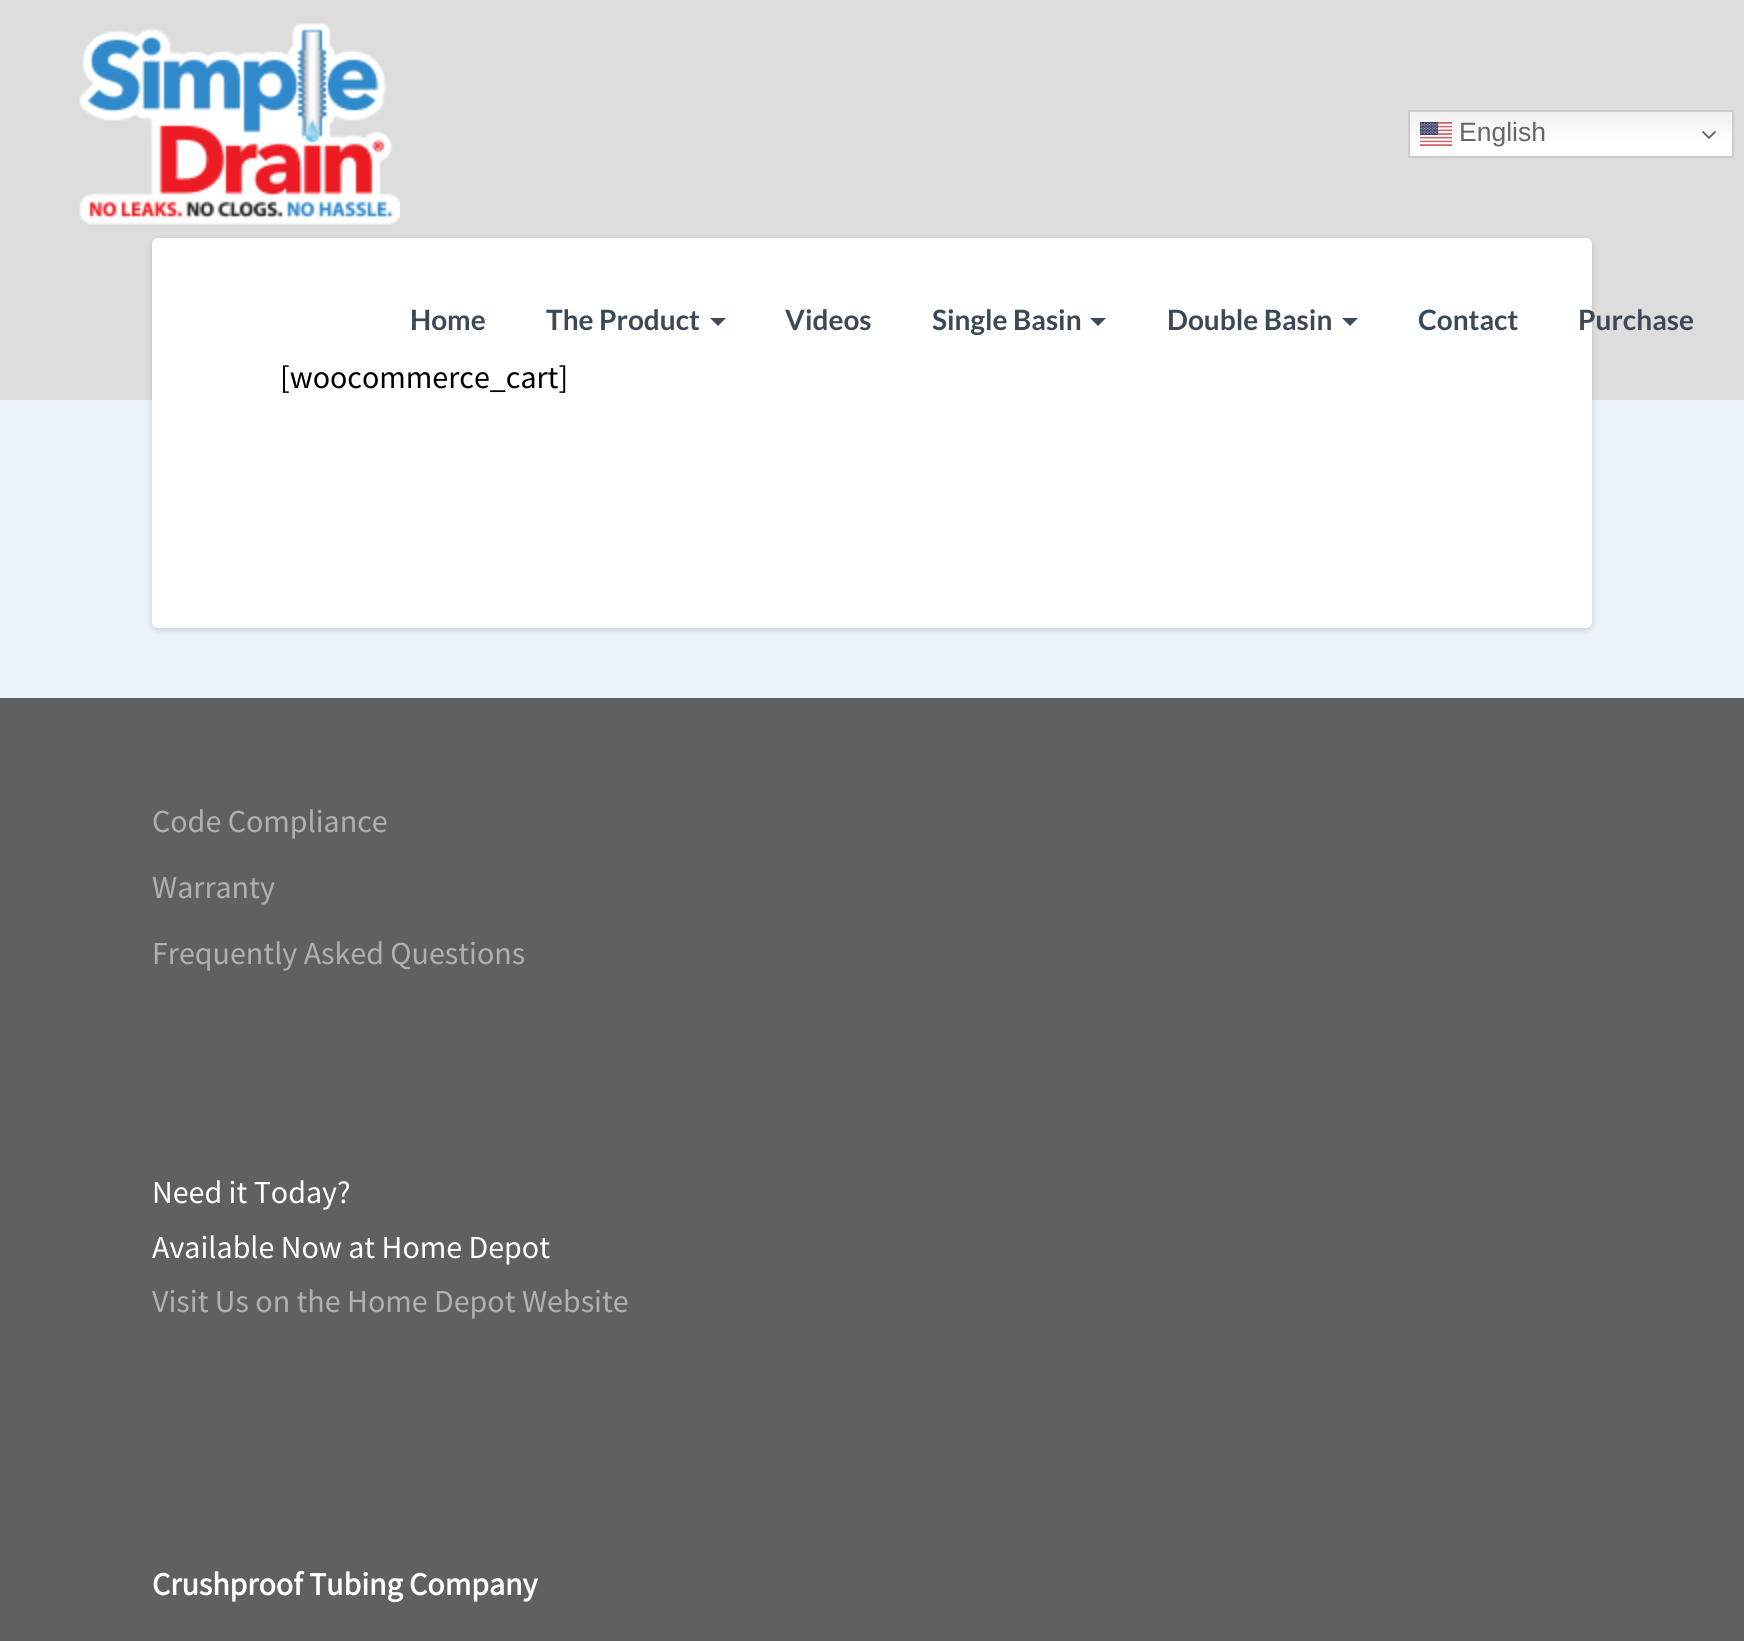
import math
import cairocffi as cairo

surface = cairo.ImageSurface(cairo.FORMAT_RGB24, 1744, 1641)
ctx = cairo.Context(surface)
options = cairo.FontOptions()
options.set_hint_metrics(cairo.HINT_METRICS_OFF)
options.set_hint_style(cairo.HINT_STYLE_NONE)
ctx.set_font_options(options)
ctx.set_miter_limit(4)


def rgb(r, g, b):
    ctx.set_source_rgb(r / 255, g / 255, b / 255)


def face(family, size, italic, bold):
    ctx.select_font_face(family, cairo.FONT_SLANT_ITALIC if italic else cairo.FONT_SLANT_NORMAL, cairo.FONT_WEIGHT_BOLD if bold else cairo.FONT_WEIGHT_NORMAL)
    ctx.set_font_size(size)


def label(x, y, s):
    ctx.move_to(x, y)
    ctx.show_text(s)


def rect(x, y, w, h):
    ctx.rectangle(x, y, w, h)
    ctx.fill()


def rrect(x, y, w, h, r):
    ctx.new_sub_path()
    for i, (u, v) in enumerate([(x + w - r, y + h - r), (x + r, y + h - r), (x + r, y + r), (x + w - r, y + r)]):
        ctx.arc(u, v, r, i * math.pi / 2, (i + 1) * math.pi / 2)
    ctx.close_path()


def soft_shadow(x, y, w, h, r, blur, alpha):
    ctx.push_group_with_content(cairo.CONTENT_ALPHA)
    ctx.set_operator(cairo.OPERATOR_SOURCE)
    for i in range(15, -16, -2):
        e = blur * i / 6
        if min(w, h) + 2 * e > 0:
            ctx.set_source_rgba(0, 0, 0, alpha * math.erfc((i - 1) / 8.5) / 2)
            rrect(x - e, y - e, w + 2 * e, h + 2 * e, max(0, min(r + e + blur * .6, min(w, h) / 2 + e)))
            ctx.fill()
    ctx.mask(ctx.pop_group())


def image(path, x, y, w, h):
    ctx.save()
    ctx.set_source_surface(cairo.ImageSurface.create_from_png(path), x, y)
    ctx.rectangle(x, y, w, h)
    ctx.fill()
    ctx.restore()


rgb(234, 243, 250)
ctx.paint()
rgb(221, 221, 221)
rect(0, 0, 1744, 400)
gradient = cairo.LinearGradient(1571, 110, 1571, 158)
gradient.add_color_stop_rgba(0, 0.937, 0.937, 0.937, 1)
gradient.add_color_stop_rgba(0.7, 1, 1, 1, 1)
ctx.set_source(gradient)
rect(1410, 112, 322, 44)
ctx.rectangle(1409, 111, 324, 46)
rgb(204, 204, 204)
ctx.stroke()
image('image0.png', 1420, 122, 32, 24)
face('Liberation Sans', 26.5, 0, 0)
rgb(102, 102, 102)
label(1459, 141, 'English')
image('image1.png', 1702, 131, 14, 8)
image('image2.png', 79, 23, 321, 202)
rgb(0, 0, 0)
soft_shadow(152, 240, 1440, 390, 6, 3, 0.15)
rgb(255, 255, 255)
rrect(152, 238, 1440, 390, 6)
ctx.fill()
face('Lato', 28, 0, 1)
rgb(60, 72, 86)
label(410, 330, 'Home')
label(546, 330, 'The Product')
ctx.new_path()
ctx.move_to(710, 318)
ctx.line_to(726, 318)
ctx.line_to(718, 326)
ctx.close_path()
ctx.fill()
label(785, 330, 'Videos')
label(932, 330, 'Single Basin')
ctx.new_path()
ctx.move_to(1090, 318)
ctx.line_to(1106, 318)
ctx.line_to(1098, 326)
ctx.close_path()
ctx.fill()
label(1167, 330, 'Double Basin')
ctx.new_path()
ctx.move_to(1342, 318)
ctx.line_to(1358, 318)
ctx.line_to(1350, 326)
ctx.close_path()
ctx.fill()
label(1418, 330, 'Contact')
label(1578, 330, 'Purchase')
face('Source Sans Pro', 32, 0, 0)
rgb(0, 0, 0)
label(280, 388, '[woocommerce_cart]')
rgb(96, 96, 96)
rect(0, 698, 1744, 943)
rgb(176, 176, 176)
label(152, 832, 'Code Compliance')
label(152, 898, 'Warranty')
label(152, 964, 'Frequently Asked Questions')
rgb(255, 255, 255)
label(152, 1203, 'Need it Today?')
label(152, 1258, 'Available Now at Home Depot')
rgb(176, 176, 176)
label(152, 1312, 'Visit Us on the Home Depot Website')
face('Source Sans Pro', 32, 0, 1)
rgb(255, 255, 255)
label(152, 1595, 'Crushproof Tubing Company')
surface.write_to_png('render.png')
